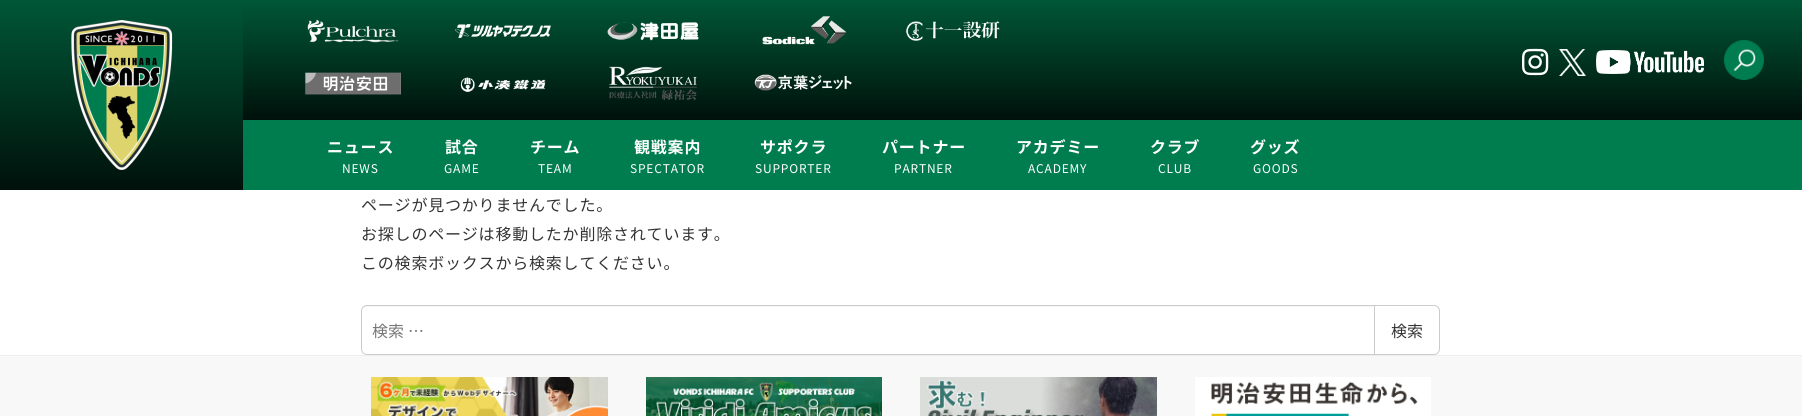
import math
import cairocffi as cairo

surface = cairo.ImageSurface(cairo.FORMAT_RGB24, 1802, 416)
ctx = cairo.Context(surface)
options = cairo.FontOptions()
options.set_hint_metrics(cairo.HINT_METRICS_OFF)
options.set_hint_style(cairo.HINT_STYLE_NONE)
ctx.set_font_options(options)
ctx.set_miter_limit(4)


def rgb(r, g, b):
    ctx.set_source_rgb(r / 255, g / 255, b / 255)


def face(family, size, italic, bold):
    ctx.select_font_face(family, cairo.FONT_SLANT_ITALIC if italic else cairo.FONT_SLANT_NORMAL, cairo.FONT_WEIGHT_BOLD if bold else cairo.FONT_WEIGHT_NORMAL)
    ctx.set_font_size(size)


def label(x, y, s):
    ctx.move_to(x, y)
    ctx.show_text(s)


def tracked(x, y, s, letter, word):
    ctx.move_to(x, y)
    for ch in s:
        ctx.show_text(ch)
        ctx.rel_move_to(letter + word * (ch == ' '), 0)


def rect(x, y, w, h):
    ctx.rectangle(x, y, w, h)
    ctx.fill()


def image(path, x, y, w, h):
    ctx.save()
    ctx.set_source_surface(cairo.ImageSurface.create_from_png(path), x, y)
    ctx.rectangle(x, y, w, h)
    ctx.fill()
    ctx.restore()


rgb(255, 255, 255)
ctx.paint()
image('image0.png', 0, 0, 243, 190)
gradient = cairo.LinearGradient(1023, 0, 1023, 120)
gradient.add_color_stop_rgba(0, 0, 0.341, 0.216, 1)
gradient.add_color_stop_rgba(1, 0, 0.067, 0.043, 1)
ctx.set_source(gradient)
rect(243, 0, 1559, 120)
image('image1.png', 307, 19, 92, 24)
image('image2.png', 455, 24, 96, 14)
image('image3.png', 607, 22, 92, 19)
image('image4.png', 762, 16, 85, 29)
image('image5.png', 906, 21, 94, 20)
image('image6.png', 305, 72, 96, 23)
image('image7.png', 460, 77, 86, 16)
image('image8.png', 609, 66, 88, 35)
image('image9.png', 754, 74, 98, 17)
image('image10.png', 1522, 48, 27, 28)
image('image11.png', 1559, 49, 27, 27)
image('image12.png', 1596, 50, 108, 24)
image('image13.png', 1724, 40, 40, 40)
rgb(0, 125, 79)
rect(243, 120, 1559, 70)
face('Noto Sans JP', 16, 0, 1)
rgb(255, 255, 255)
tracked(327, 153, 'ニュース', 0.8, 0)
face('Noto Sans JP', 12, 0, 0)
tracked(342, 173, 'NEWS', 0.8, 0)
face('Noto Sans JP', 16, 0, 1)
tracked(445, 153, '試合', 0.8, 0)
face('Noto Sans JP', 12, 0, 0)
tracked(444, 173, 'GAME', 0.8, 0)
face('Noto Sans JP', 16, 0, 1)
tracked(530, 153, 'チーム', 0.8, 0)
face('Noto Sans JP', 12, 0, 0)
tracked(538, 173, 'TEAM', 0.8, 0)
face('Noto Sans JP', 16, 0, 1)
tracked(634, 153, '観戦案内', 0.8, 0)
face('Noto Sans JP', 12, 0, 0)
tracked(630, 173, 'SPECTATOR', 0.8, 0)
face('Noto Sans JP', 16, 0, 1)
tracked(760, 153, 'サポクラ', 0.8, 0)
face('Noto Sans JP', 12, 0, 0)
tracked(755, 173, 'SUPPORTER', 0.8, 0)
face('Noto Sans JP', 16, 0, 1)
tracked(882, 153, 'パートナー', 0.8, 0)
face('Noto Sans JP', 12, 0, 0)
tracked(894, 173, 'PARTNER', 0.8, 0)
face('Noto Sans JP', 16, 0, 1)
tracked(1016, 153, 'アカデミー', 0.8, 0)
face('Noto Sans JP', 12, 0, 0)
tracked(1028, 173, 'ACADEMY', 0.8, 0)
face('Noto Sans JP', 16, 0, 1)
tracked(1150, 153, 'クラブ', 0.8, 0)
face('Noto Sans JP', 12, 0, 0)
tracked(1158, 173, 'CLUB', 0.8, 0)
face('Noto Sans JP', 16, 0, 1)
tracked(1250, 153, 'グッズ', 0.8, 0)
face('Noto Sans JP', 12, 0, 0)
tracked(1253, 173, 'GOODS', 0.8, 0)
face('Noto Sans JP', 16, 0, 0)
rgb(51, 51, 51)
tracked(361, 211, 'ページが見つかりませんでした。', 0.8, 0)
tracked(361, 240, 'お探しのページは移動したか削除されています。', 0.8, 0)
tracked(361, 269, 'この検索ボックスから検索してください。', 0.8, 0)
ctx.new_path()
ctx.move_to(1374.5, 305.5)
ctx.line_to(1434, 305.5)
ctx.curve_to(1437, 305.5, 1439.5, 308, 1439.5, 311)
ctx.line_to(1439.5, 349)
ctx.curve_to(1439.5, 352, 1437, 354.5, 1434, 354.5)
ctx.line_to(1374.5, 354.5)
ctx.close_path()
rgb(204, 204, 204)
ctx.set_line_width(1)
ctx.stroke()
rgb(255, 255, 255)
ctx.new_path()
ctx.move_to(367, 305)
ctx.line_to(1375, 305)
ctx.line_to(1375, 355)
ctx.line_to(367, 355)
ctx.curve_to(363.5, 355, 361, 352.5, 361, 349)
ctx.line_to(361, 311)
ctx.curve_to(361, 307.5, 363.5, 305, 367, 305)
ctx.close_path()
ctx.fill()
rgb(246, 246, 246)
ctx.new_path()
ctx.move_to(367, 307)
ctx.line_to(1374, 307)
ctx.line_to(1374, 306)
ctx.line_to(367, 306)
ctx.curve_to(364, 306, 362, 309, 362, 312)
ctx.curve_to(362, 309, 364, 307, 367, 307)
ctx.close_path()
ctx.fill()
ctx.new_path()
ctx.move_to(367, 305.5)
ctx.line_to(1374.5, 305.5)
ctx.line_to(1374.5, 354.5)
ctx.line_to(367, 354.5)
ctx.curve_to(364, 354.5, 361.5, 352, 361.5, 349)
ctx.line_to(361.5, 311)
ctx.curve_to(361.5, 308, 364, 305.5, 367, 305.5)
ctx.close_path()
rgb(204, 204, 204)
ctx.stroke()
rgb(117, 117, 117)
label(372, 337, '検索')
label(408, 337, '…')
rgb(51, 51, 51)
label(1391, 337, '検索')
rgb(238, 238, 238)
rect(0, 355, 1802, 1)
rgb(248, 248, 248)
rect(0, 356, 1802, 60)
image('image14.png', 371, 377, 237, 39)
image('image15.png', 646, 377, 236, 39)
image('image16.png', 920, 377, 237, 39)
image('image17.png', 1195, 377, 236, 39)
surface.write_to_png('render.png')
